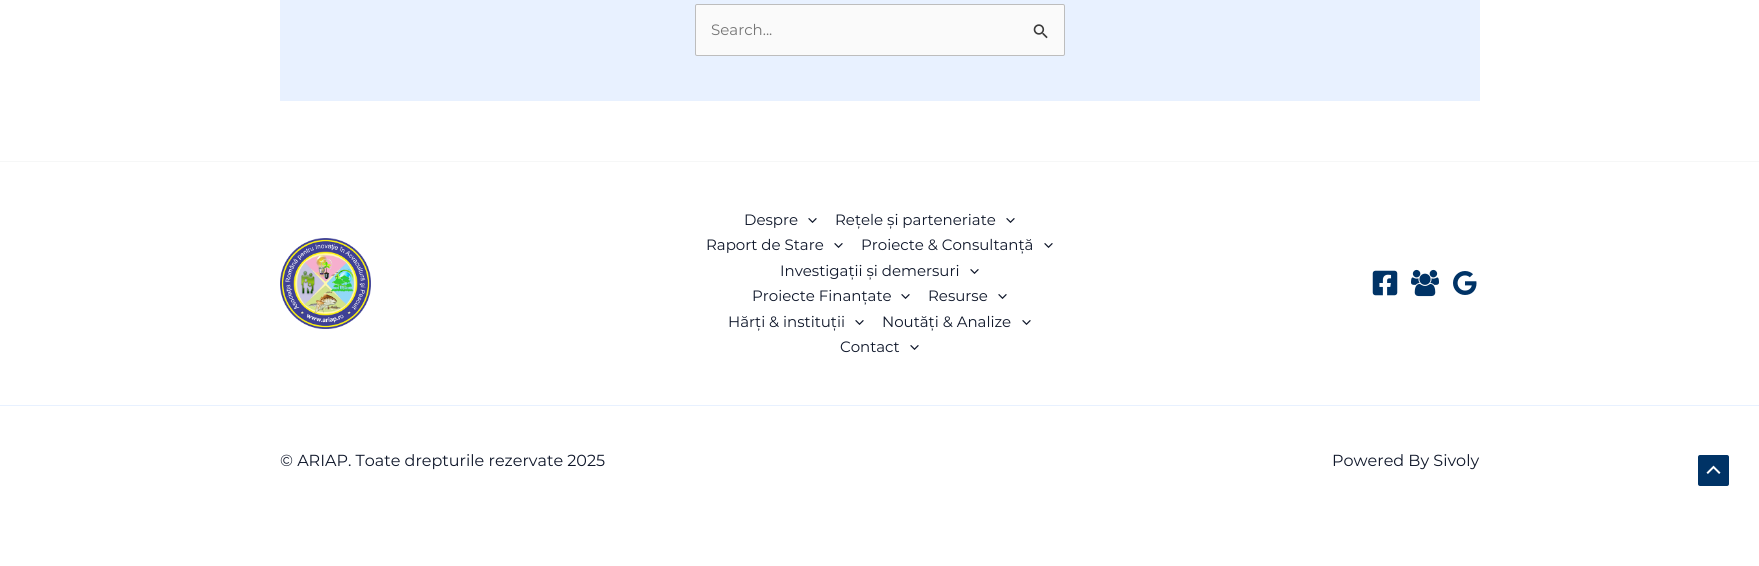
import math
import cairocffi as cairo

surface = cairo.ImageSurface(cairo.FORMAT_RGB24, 1759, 566)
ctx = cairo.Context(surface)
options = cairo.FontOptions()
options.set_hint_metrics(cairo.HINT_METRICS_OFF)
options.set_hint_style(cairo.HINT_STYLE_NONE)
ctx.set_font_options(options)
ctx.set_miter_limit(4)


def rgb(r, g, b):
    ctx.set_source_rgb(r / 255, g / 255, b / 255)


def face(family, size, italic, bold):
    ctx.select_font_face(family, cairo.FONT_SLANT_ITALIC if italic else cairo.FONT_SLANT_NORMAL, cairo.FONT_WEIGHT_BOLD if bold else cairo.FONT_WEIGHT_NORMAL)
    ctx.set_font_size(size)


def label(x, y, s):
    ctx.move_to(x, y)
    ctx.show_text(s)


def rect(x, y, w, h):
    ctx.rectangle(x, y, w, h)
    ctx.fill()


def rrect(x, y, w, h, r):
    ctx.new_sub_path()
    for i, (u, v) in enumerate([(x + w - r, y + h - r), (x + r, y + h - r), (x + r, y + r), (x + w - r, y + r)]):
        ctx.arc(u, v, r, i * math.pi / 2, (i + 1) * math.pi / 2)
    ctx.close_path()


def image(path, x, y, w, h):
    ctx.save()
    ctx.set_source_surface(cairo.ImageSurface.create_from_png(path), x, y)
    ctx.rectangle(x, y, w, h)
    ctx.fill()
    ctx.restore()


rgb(255, 255, 255)
ctx.paint()
rgb(232, 241, 255)
rect(280, 0, 1200, 101)
rgb(250, 250, 250)
rrect(695.5, 4.5, 369, 51, 1.5)
ctx.fill_preserve()
rgb(189, 189, 189)
ctx.set_line_width(1)
ctx.stroke()
face('Montserrat', 15, 0, 0)
rgb(117, 117, 117)
label(711, 35, 'Search...')
image('image0.png', 1033, 24, 15, 15)
rgb(246, 247, 247)
rect(0, 161, 1759, 1)
image('image1.png', 280, 238, 91, 91)
rgb(15, 23, 42)
label(744, 225, 'Despre')
image('image2.png', 808, 218, 9, 5)
label(835, 225, 'Rețele și parteneriate')
image('image2.png', 1006, 218, 9, 5)
label(706, 250, 'Raport de Stare')
image('image2.png', 834, 243, 9, 5)
label(861, 250, 'Proiecte & Consultanță')
image('image2.png', 1044, 243, 9, 5)
label(780, 276, 'Investigații și demersuri')
image('image2.png', 970, 269, 9, 5)
label(752, 301, 'Proiecte Finanțate')
image('image2.png', 901, 294, 9, 5)
label(928, 301, 'Resurse')
image('image2.png', 998, 294, 9, 5)
label(728, 327, 'Hărți & instituții')
image('image2.png', 855, 320, 9, 5)
label(882, 327, 'Noutăți & Analize')
image('image2.png', 1022, 320, 9, 5)
label(840, 352, 'Contact')
image('image2.png', 910, 345, 9, 5)
image('image3.png', 1372, 270, 26, 26)
image('image4.png', 1411, 269, 28, 28)
image('image5.png', 1453, 271, 24, 24)
rgb(232, 241, 255)
rect(0, 405, 1759, 1)
face('Montserrat', 16, 0, 0)
rgb(15, 23, 42)
label(280, 466, '© ARIAP. Toate drepturile rezervate 2025')
label(1332, 466, 'Powered By Sivoly')
rgb(0, 51, 102)
rrect(1698, 455, 31, 31, 2)
ctx.fill()
image('image6.png', 1706, 465, 15, 9)
surface.write_to_png('render.png')
